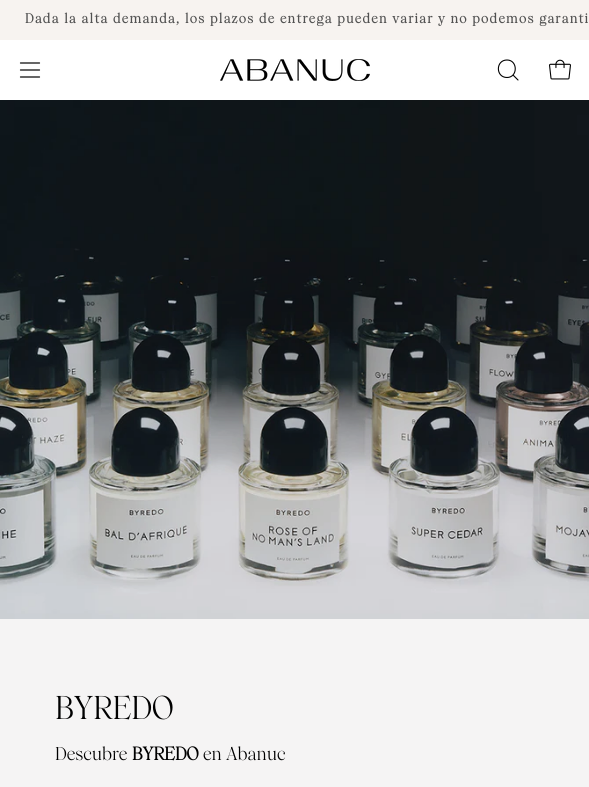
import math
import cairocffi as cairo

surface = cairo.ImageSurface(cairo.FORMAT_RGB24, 589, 787)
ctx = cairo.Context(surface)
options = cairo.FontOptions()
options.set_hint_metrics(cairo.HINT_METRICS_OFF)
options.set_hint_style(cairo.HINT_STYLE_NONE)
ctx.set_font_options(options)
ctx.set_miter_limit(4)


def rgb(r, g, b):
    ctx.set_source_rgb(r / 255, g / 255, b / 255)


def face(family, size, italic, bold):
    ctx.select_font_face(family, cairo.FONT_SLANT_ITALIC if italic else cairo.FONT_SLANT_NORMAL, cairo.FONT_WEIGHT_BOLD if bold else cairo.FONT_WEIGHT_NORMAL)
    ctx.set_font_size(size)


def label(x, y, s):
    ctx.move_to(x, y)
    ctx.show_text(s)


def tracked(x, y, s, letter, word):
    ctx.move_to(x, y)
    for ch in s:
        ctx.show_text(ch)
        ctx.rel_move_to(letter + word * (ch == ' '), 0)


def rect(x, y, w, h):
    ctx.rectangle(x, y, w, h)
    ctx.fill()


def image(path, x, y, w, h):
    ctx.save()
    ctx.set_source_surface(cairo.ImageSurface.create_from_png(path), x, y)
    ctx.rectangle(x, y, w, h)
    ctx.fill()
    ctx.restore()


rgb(255, 255, 255)
ctx.paint()
rgb(247, 243, 240)
rect(0, 0, 589, 40)
face('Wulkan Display', 13.2, 0, 1)
rgb(81, 81, 81)
tracked(25, 23, 'Dada la alta demanda, los plazos de entrega pueden variar y no podemos garanti', 1.32, 0)
ctx.new_path()
ctx.move_to(20.5, 70)
ctx.line_to(39.5, 70)
ctx.move_to(20.5, 63)
ctx.line_to(39.5, 63)
ctx.move_to(20.5, 77)
ctx.line_to(39.5, 77)
rgb(0, 0, 0)
ctx.set_line_width(1.2)
ctx.set_line_cap(cairo.LINE_CAP_ROUND)
ctx.set_line_join(cairo.LINE_JOIN_ROUND)
ctx.stroke()
image('image0.png', 220, 59, 150, 22)
ctx.new_path()
ctx.move_to(507, 77.5)
ctx.curve_to(518, 77.5, 518, 60, 507, 60)
ctx.curve_to(495.5, 60, 495.5, 77.5, 507, 77.5)
ctx.close_path()
ctx.move_to(513, 75)
ctx.line_to(518, 80)
ctx.set_line_width(1.1)
ctx.stroke()
image('image1.png', 549, 59, 22, 21)
image('image2.png', 0, 100, 589, 519)
rgb(245, 244, 244)
rect(0, 619, 589, 168)
face('Wulkan Display', 32, 0, 0)
rgb(0, 0, 0)
label(55, 719, 'BYREDO')
face('Wulkan Display', 18, 0, 0)
label(55, 760, 'Descubre')
face('Wulkan Display', 18, 0, 1)
label(132, 760, 'BYREDO')
face('Wulkan Display', 18, 0, 0)
label(203, 760, 'en Abanuc')
surface.write_to_png('render.png')
